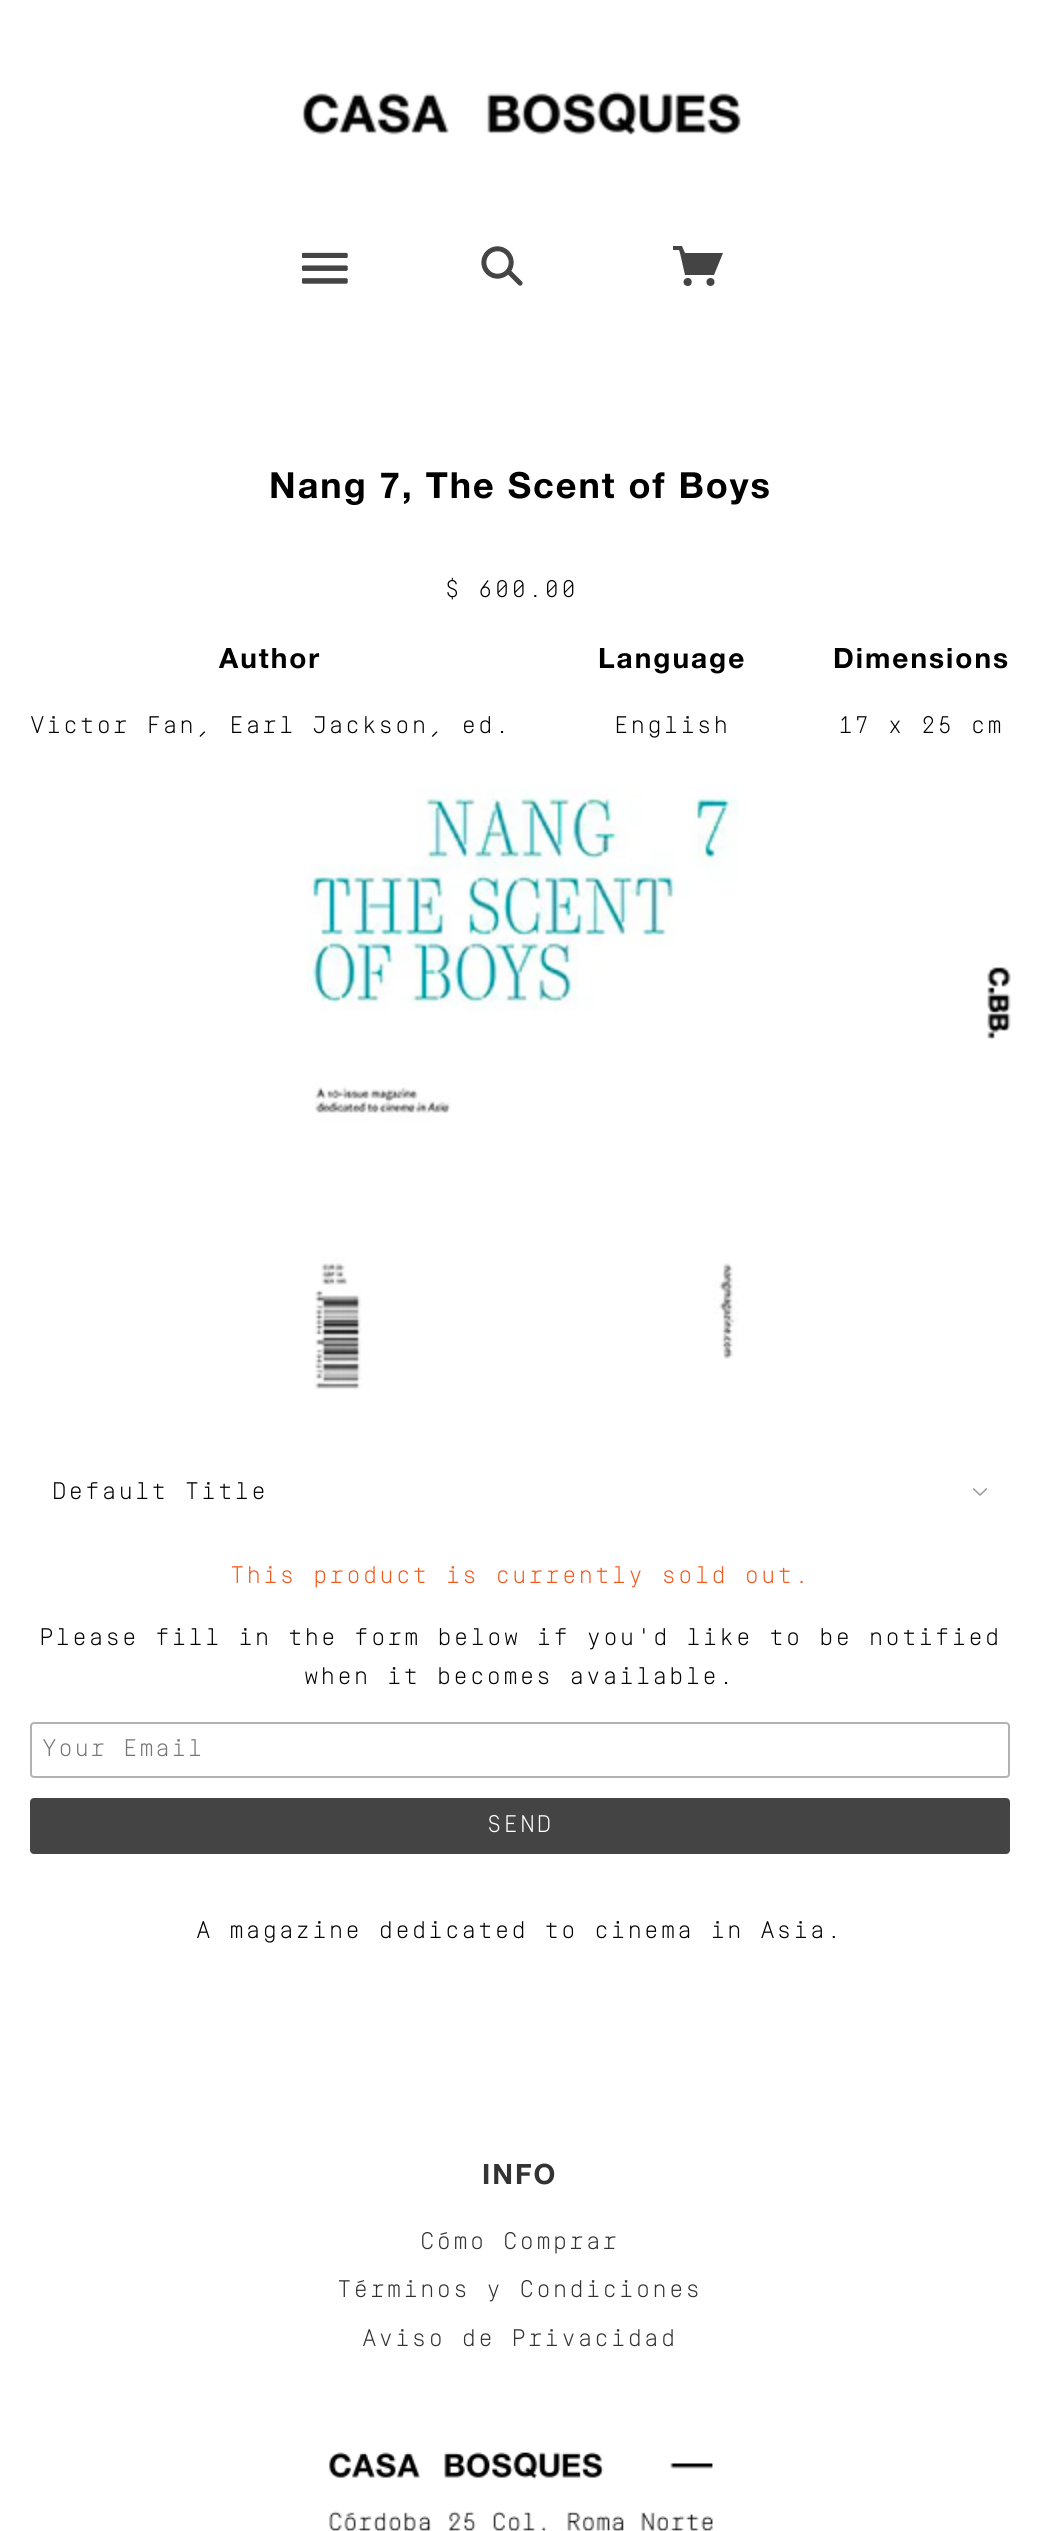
import math
import cairocffi as cairo

surface = cairo.ImageSurface(cairo.FORMAT_RGB24, 1040, 2531)
ctx = cairo.Context(surface)
options = cairo.FontOptions()
options.set_hint_metrics(cairo.HINT_METRICS_OFF)
options.set_hint_style(cairo.HINT_STYLE_NONE)
ctx.set_font_options(options)
ctx.set_miter_limit(4)


def rgb(r, g, b):
    ctx.set_source_rgb(r / 255, g / 255, b / 255)


def face(family, size, italic, bold):
    ctx.select_font_face(family, cairo.FONT_SLANT_ITALIC if italic else cairo.FONT_SLANT_NORMAL, cairo.FONT_WEIGHT_BOLD if bold else cairo.FONT_WEIGHT_NORMAL)
    ctx.set_font_size(size)


def tracked(x, y, s, letter, word):
    ctx.move_to(x, y)
    for ch in s:
        ctx.show_text(ch)
        ctx.rel_move_to(letter + word * (ch == ' '), 0)


def rrect(x, y, w, h, r):
    ctx.new_sub_path()
    for i, (u, v) in enumerate([(x + w - r, y + h - r), (x + r, y + h - r), (x + r, y + r), (x + w - r, y + r)]):
        ctx.arc(u, v, r, i * math.pi / 2, (i + 1) * math.pi / 2)
    ctx.close_path()


def image(path, x, y, w, h):
    ctx.save()
    ctx.set_source_surface(cairo.ImageSurface.create_from_png(path), x, y)
    ctx.rectangle(x, y, w, h)
    ctx.fill()
    ctx.restore()


rgb(255, 255, 255)
ctx.paint()
image('image0.png', 302, 91, 439, 44)
image('image1.png', 987, 967, 24, 72)
image('image2.png', 302, 252, 46, 32)
image('image3.png', 481, 246, 42, 40)
rgb(68, 68, 68)
ctx.new_path()
ctx.move_to(685, 275)
ctx.line_to(714, 275)
ctx.line_to(723, 253)
ctx.line_to(685, 253)
ctx.line_to(682, 246)
ctx.line_to(673, 246)
ctx.line_to(673, 250)
ctx.line_to(679, 250)
ctx.line_to(680, 253)
ctx.close_path()
ctx.move_to(688, 278)
ctx.curve_to(682, 278, 682, 286, 688, 286)
ctx.curve_to(693, 286, 693, 278, 688, 278)
ctx.close_path()
ctx.fill()
ctx.arc(710.5, 282, 4, 0, 2 * math.pi)
ctx.fill()
face('Helvetica Neue', 36, 0, 1)
rgb(0, 0, 0)
tracked(269, 498, 'Nang 7, The Scent of Boys', 2, 0)
face('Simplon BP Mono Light', 24, 0, 0)
tracked(445, 597, '$ 600.00', 2, 0)
face('Helvetica Neue', 28, 0, 1)
tracked(219, 668, 'Author', 2, 0)
face('Simplon BP Mono Light', 24, 0, 0)
tracked(30, 733, 'Victor Fan, Earl Jackson, ed.', 2, 0)
face('Helvetica Neue', 28, 0, 1)
tracked(598, 668, 'Language', 2, 0)
face('Simplon BP Mono Light', 24, 0, 0)
tracked(614, 733, 'English', 2, 0)
face('Helvetica Neue', 28, 0, 1)
tracked(833, 668, 'Dimensions', 2, 0)
face('Simplon BP Mono Light', 24, 0, 0)
tracked(838, 733, '17 x 25 cm', 2, 0)
image('image4.png', 306, 786, 433, 604)
image('image5.png', 972, 1488, 16, 8)
tracked(52, 1499, 'Default Title', 2, 0)
rgb(242, 90, 29)
tracked(230, 1583, 'This product is currently sold out.', 2, 0)
rgb(0, 0, 0)
tracked(39, 1645, 'Please fill in the form below if you\'d like to be notified', 2, 0)
tracked(304, 1684, 'when it becomes available.', 2, 0)
rrect(31, 1723, 978, 54, 3)
rgb(178, 178, 178)
ctx.stroke()
rgb(117, 117, 117)
tracked(42, 1756, 'Your Email', 1.6, 0)
rgb(68, 68, 68)
rrect(30, 1798, 980, 56, 4)
ctx.fill()
rgb(255, 255, 255)
tracked(487, 1832, 'SEND', 2, 0)
rgb(0, 0, 0)
tracked(196, 1938, 'A magazine dedicated to cinema in Asia.', 2, 0)
face('Helvetica Neue', 28, 0, 1)
rgb(51, 51, 51)
tracked(482, 2184, 'INFO', 2, 0)
face('Simplon BP Mono Light', 24, 0, 0)
tracked(420, 2249, 'Cómo Comprar', 2, 0)
tracked(337, 2297, 'Términos y Condiciones', 2, 0)
tracked(362, 2346, 'Aviso de Privacidad', 2, 0)
image('image6.png', 329, 2452, 384, 79)
surface.write_to_png('render.png')
